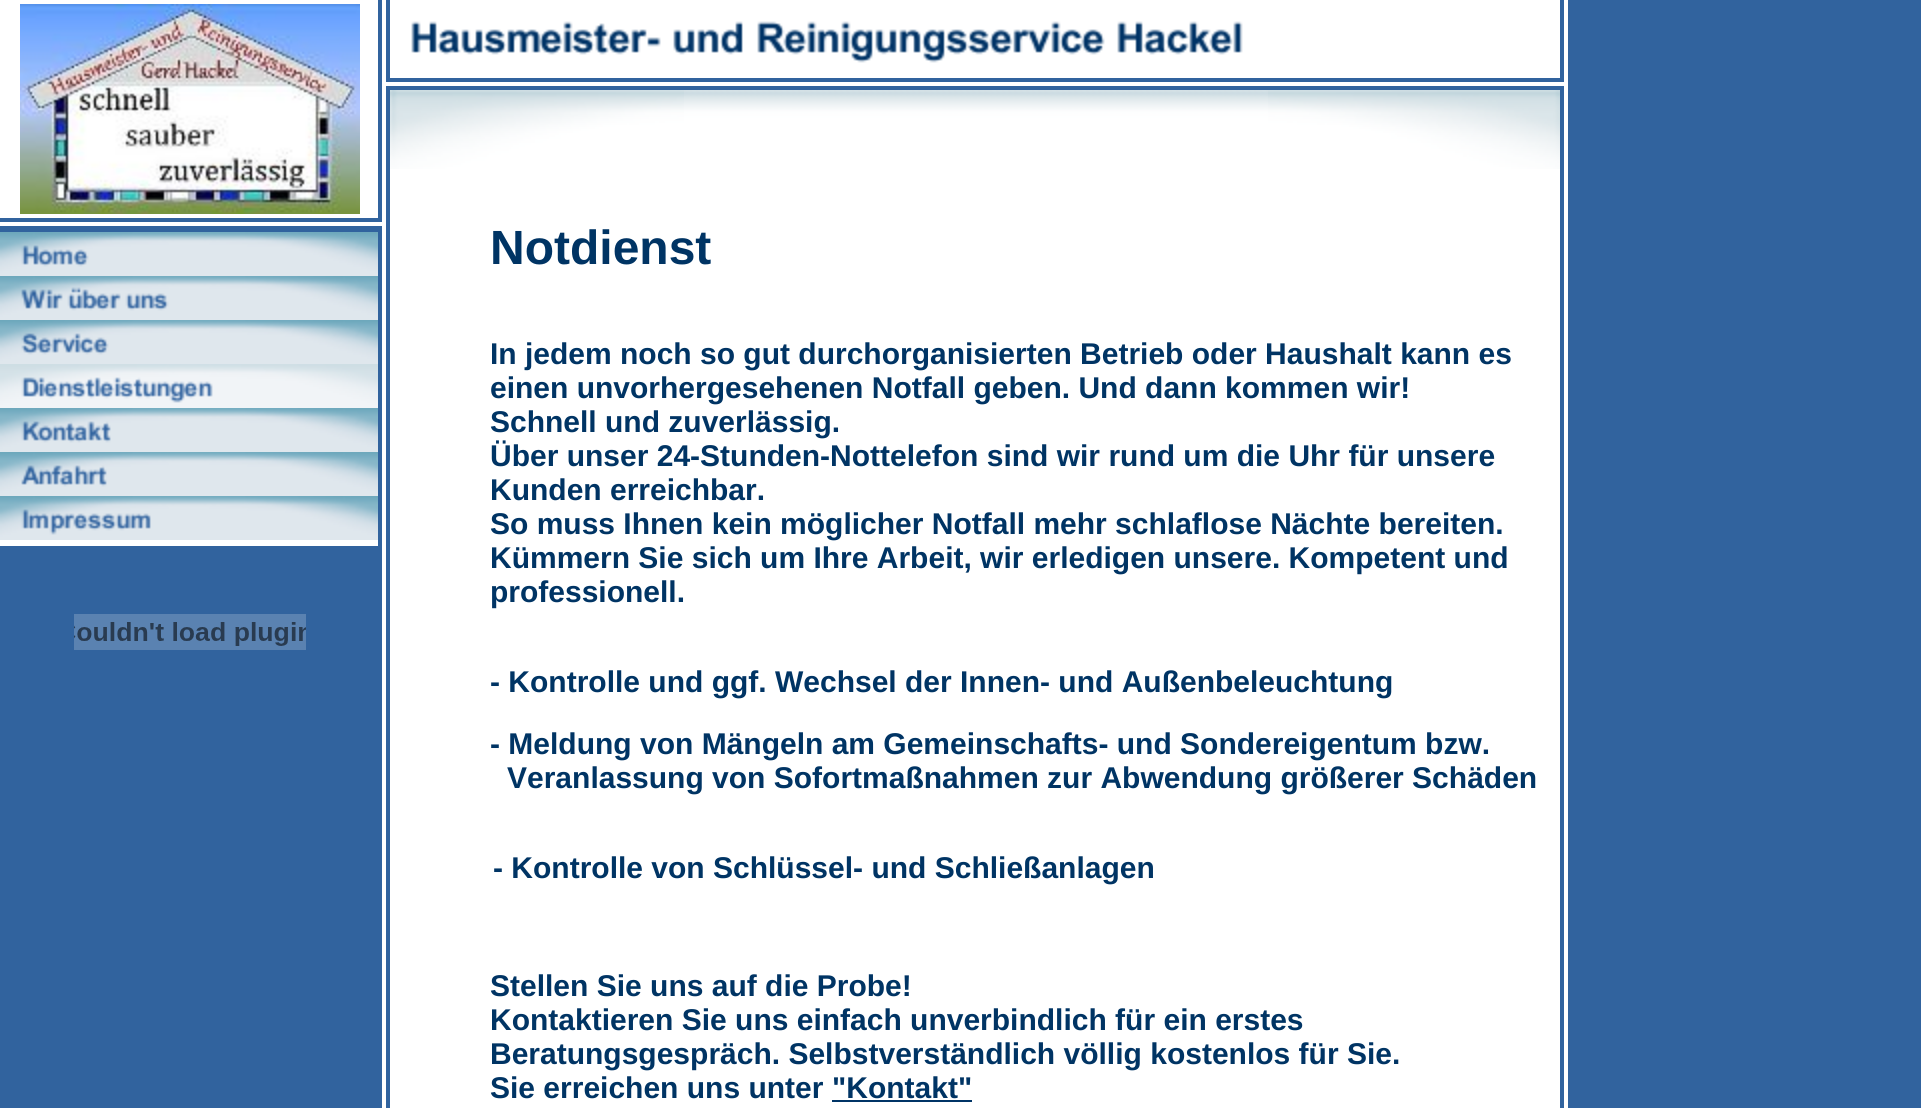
import math
import cairocffi as cairo

surface = cairo.ImageSurface(cairo.FORMAT_RGB24, 1921, 1108)
ctx = cairo.Context(surface)
options = cairo.FontOptions()
options.set_hint_metrics(cairo.HINT_METRICS_OFF)
options.set_hint_style(cairo.HINT_STYLE_NONE)
ctx.set_font_options(options)
ctx.set_miter_limit(4)


def rgb(r, g, b):
    ctx.set_source_rgb(r / 255, g / 255, b / 255)


def face(family, size, italic, bold):
    ctx.select_font_face(family, cairo.FONT_SLANT_ITALIC if italic else cairo.FONT_SLANT_NORMAL, cairo.FONT_WEIGHT_BOLD if bold else cairo.FONT_WEIGHT_NORMAL)
    ctx.set_font_size(size)


def label(x, y, s):
    ctx.move_to(x, y)
    ctx.show_text(s)


def rect(x, y, w, h):
    ctx.rectangle(x, y, w, h)
    ctx.fill()


def image(path, x, y, w, h):
    ctx.save()
    ctx.set_source_surface(cairo.ImageSurface.create_from_png(path), x, y)
    ctx.rectangle(x, y, w, h)
    ctx.fill()
    ctx.restore()


rgb(49, 99, 158)
ctx.paint()
rgb(255, 255, 255)
rect(0, 0, 378, 218)
image('image0.png', 20, 4, 340, 210)
rect(0, 222, 382, 4)
image('image1.png', 0, 232, 378, 44)
image('image2.png', 0, 276, 378, 44)
image('image3.png', 0, 320, 378, 44)
image('image4.png', 0, 364, 378, 44)
image('image5.png', 0, 408, 378, 44)
image('image6.png', 0, 452, 378, 44)
image('image7.png', 0, 496, 378, 44)
rect(0, 540, 378, 6)
image('image8.png', 74, 614, 232, 36)
rect(382, 0, 4, 1108)
rect(390, 0, 1170, 78)
image('image9.png', 411, 21, 832, 42)
rect(386, 82, 1178, 4)
image('image10.png', 390, 90, 486, 94)
image('image11.png', 390, 90, 294, 79)
image('image12.png', 876, 90, 684, 94)
image('image13.png', 1268, 90, 292, 79)
rect(390, 184, 1170, 2)
rect(390, 186, 1170, 922)
face('Liberation Sans', 48, 0, 1)
rgb(0, 52, 100)
label(490, 264, 'Notdienst')
face('Liberation Sans', 30, 0, 1)
label(490, 364, 'In jedem noch so gut durchorganisierten Betrieb oder Haushalt kann es')
label(490, 398, 'einen unvorhergesehenen Notfall geben. Und dann kommen wir!')
label(490, 432, 'Schnell und zuverlässig.')
label(490, 466, 'Über unser 24-Stunden-Nottelefon sind wir rund um die Uhr für unsere')
label(490, 500, 'Kunden erreichbar.')
label(490, 534, 'So muss Ihnen kein möglicher Notfall mehr schlaflose Nächte bereiten.')
label(490, 568, 'Kümmern Sie sich um Ihre Arbeit, wir erledigen unsere. Kompetent und')
label(490, 602, 'professionell.')
label(490, 692, '- Kontrolle und ggf. Wechsel der Innen- und Außenbeleuchtung')
label(490, 754, '- Meldung von Mängeln am Gemeinschafts- und Sondereigentum bzw.')
label(507, 788, 'Veranlassung von Sofortmaßnahmen zur Abwendung größerer Schäden')
label(493, 878, '- Kontrolle von Schlüssel- und Schließanlagen')
label(490, 996, 'Stellen Sie uns auf die Probe!')
label(490, 1030, 'Kontaktieren Sie uns einfach unverbindlich für ein erstes')
label(490, 1064, 'Beratungsgespräch. Selbstverständlich völlig kostenlos für Sie.')
label(490, 1098, 'Sie erreichen uns unter')
label(832, 1098, '"Kontakt"')
rgb(0, 52, 102)
rect(832, 1100, 140, 2)
rgb(255, 255, 255)
rect(1564, 0, 4, 1108)
surface.write_to_png('render.png')
